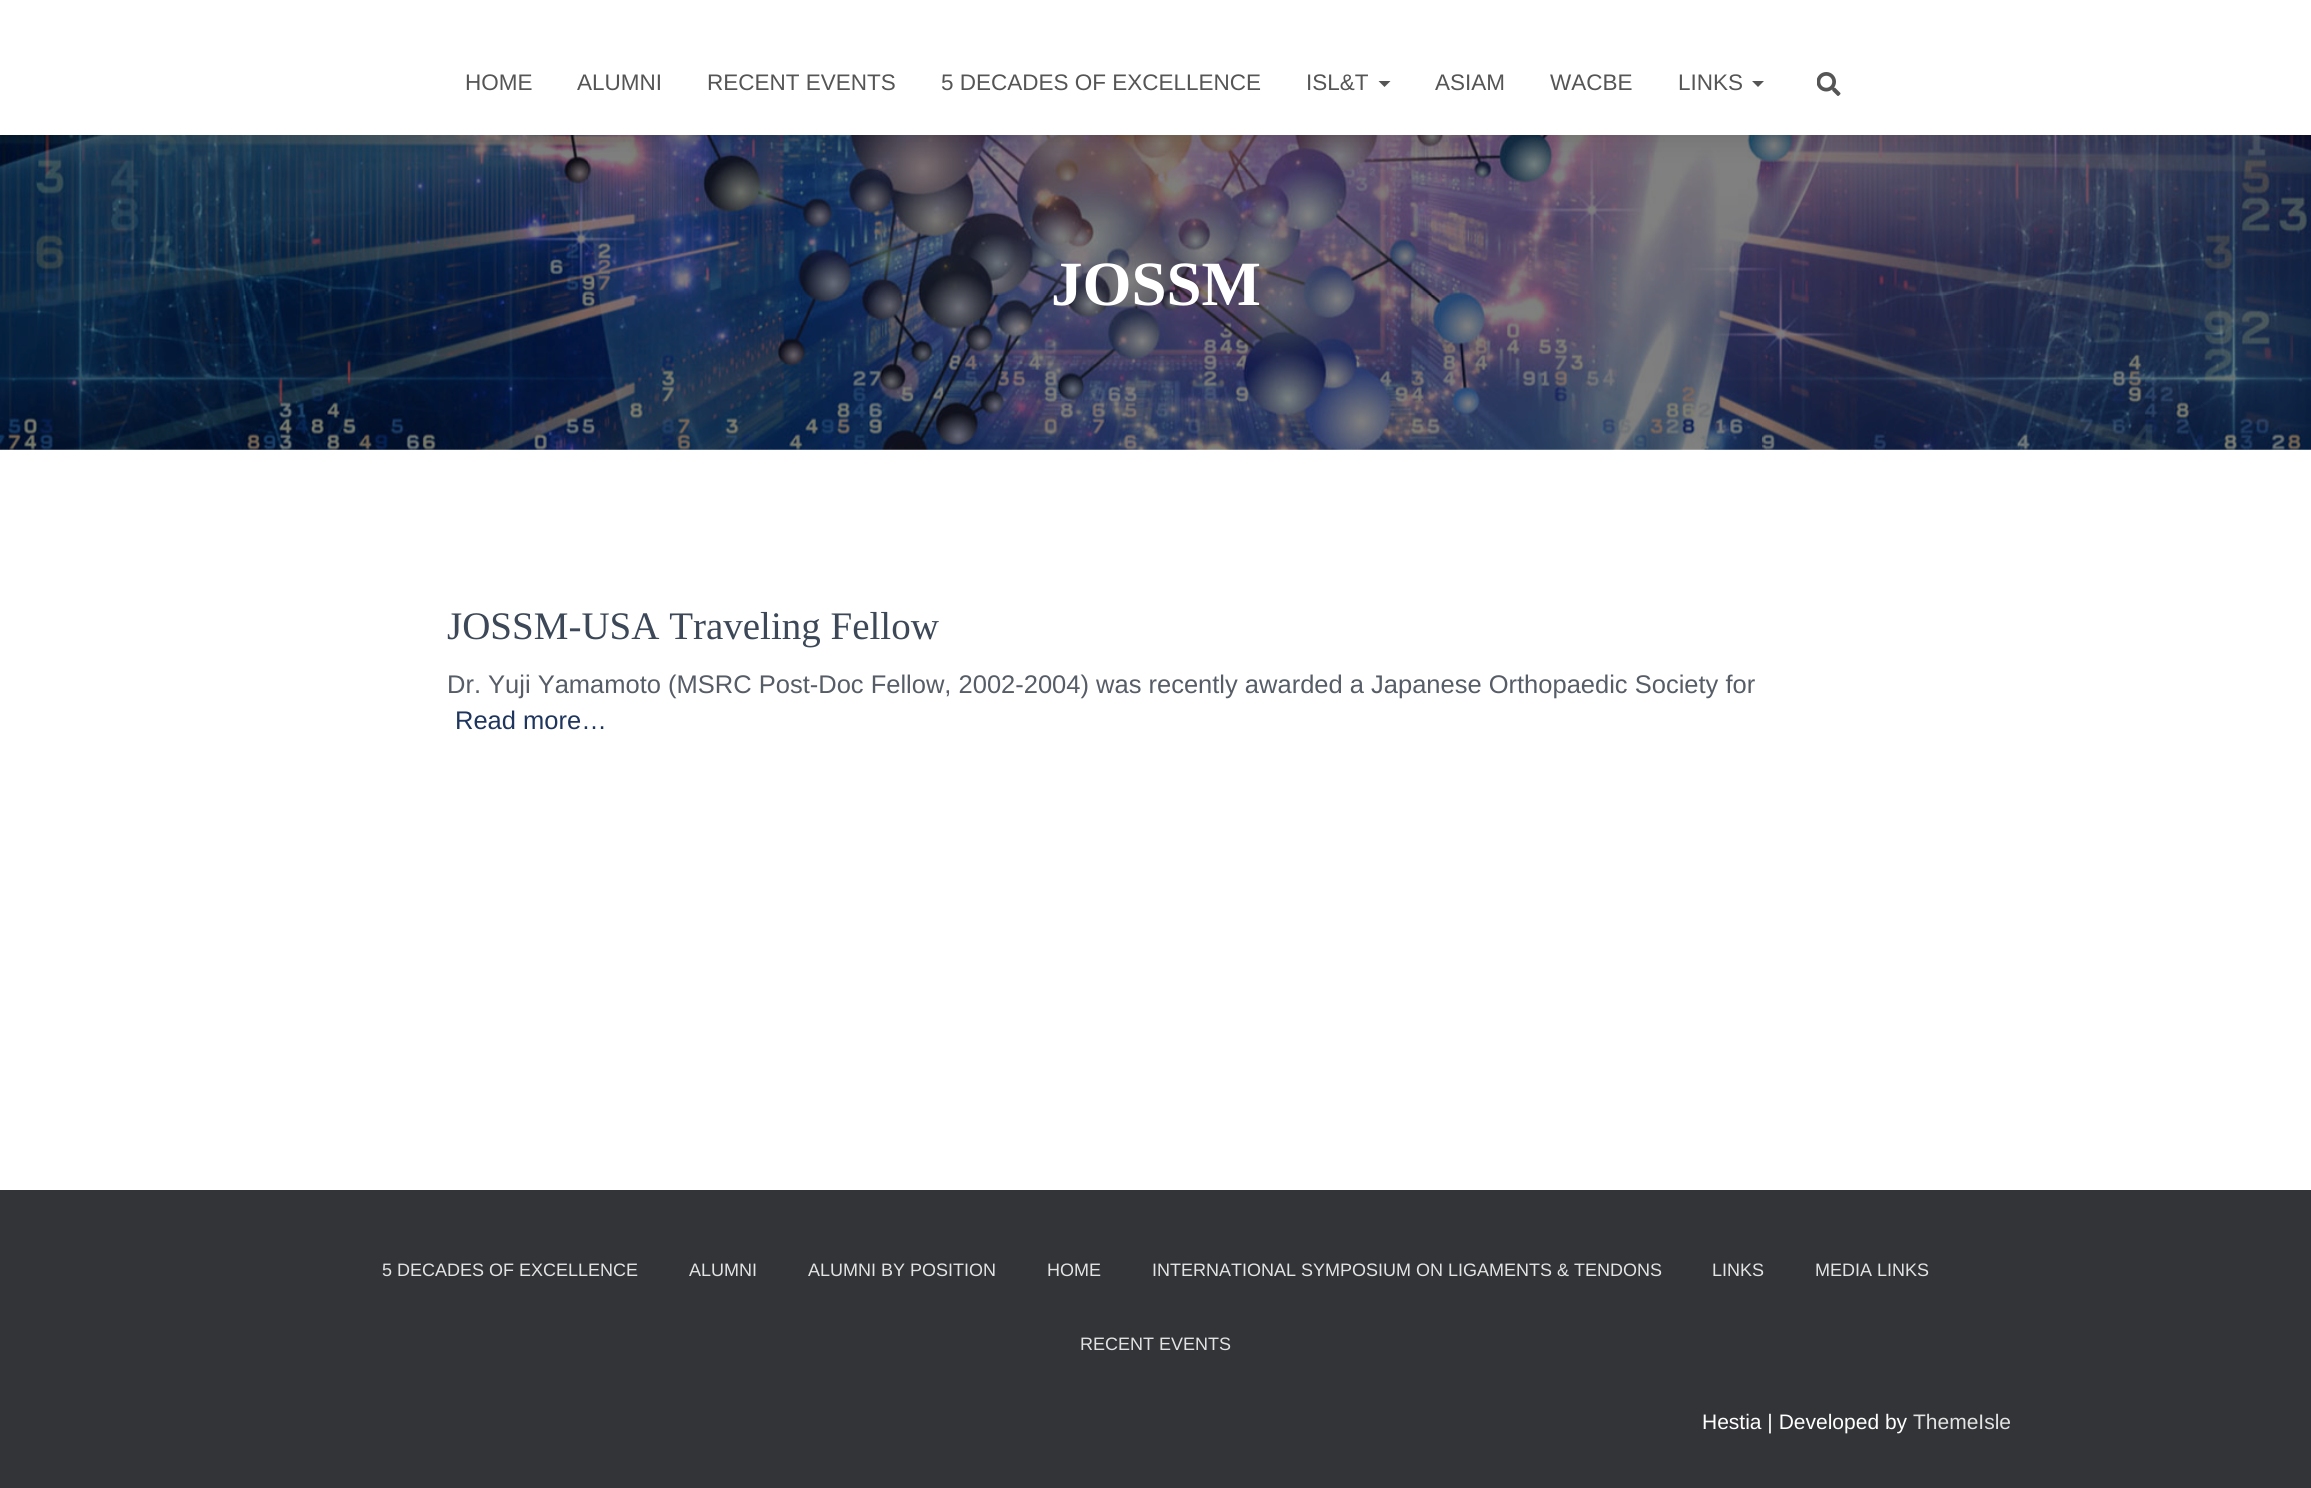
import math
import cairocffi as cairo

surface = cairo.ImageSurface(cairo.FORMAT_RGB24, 2311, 1488)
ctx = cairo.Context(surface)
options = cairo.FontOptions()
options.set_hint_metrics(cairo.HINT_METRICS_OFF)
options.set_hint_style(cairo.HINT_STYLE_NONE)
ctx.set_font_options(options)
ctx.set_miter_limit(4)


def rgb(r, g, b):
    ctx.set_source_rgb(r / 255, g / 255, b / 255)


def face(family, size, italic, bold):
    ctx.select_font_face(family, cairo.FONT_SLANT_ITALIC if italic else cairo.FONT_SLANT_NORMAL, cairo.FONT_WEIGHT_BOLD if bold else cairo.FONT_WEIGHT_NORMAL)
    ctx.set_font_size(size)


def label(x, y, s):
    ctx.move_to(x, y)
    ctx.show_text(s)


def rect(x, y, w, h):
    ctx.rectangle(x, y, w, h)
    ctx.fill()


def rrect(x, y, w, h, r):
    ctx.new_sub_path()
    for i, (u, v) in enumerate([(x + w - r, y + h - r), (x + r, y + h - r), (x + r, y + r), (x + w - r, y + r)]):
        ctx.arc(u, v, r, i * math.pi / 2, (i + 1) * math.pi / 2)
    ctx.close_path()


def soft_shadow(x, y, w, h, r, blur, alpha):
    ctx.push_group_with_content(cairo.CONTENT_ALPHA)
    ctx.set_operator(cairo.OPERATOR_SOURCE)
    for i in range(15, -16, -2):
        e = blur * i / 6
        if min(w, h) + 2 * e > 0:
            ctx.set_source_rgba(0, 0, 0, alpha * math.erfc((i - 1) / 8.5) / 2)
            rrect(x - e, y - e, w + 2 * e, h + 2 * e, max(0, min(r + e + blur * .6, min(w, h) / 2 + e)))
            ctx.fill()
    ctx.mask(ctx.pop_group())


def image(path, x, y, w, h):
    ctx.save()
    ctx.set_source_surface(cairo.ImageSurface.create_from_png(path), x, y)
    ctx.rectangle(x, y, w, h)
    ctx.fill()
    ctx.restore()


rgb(255, 255, 255)
ctx.paint()
image('image1.png', 0, 135, 2311, 315)
rgb(0, 0, 0)
soft_shadow(0, 0, 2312, 135, 0, 15, 0.15)
rgb(255, 255, 255)
rect(0, 0, 2311, 135)
face('Liberation Sans', 22.5, 0, 0)
rgb(85, 85, 85)
label(465, 90, 'HOME')
label(577, 90, 'ALUMNI')
label(707, 90, 'RECENT EVENTS')
label(941, 90, '5 DECADES OF EXCELLENCE')
label(1306, 90, 'ISL&T')
ctx.new_path()
ctx.move_to(1378.5, 81)
ctx.line_to(1390.5, 81)
ctx.line_to(1384.5, 87)
ctx.close_path()
ctx.fill()
label(1435, 90, 'ASIAM')
label(1550, 90, 'WACBE')
label(1678, 90, 'LINKS')
ctx.new_path()
ctx.move_to(1752, 81)
ctx.line_to(1764, 81)
ctx.line_to(1758, 87)
ctx.close_path()
ctx.fill()
image('image0.png', 1817, 72, 24, 24)
face('Liberation Serif', 63, 0, 1)
rgb(255, 255, 255)
label(1051, 305, 'JOSSM')
face('Liberation Serif', 39, 0, 0)
rgb(60, 72, 88)
label(447, 639, 'JOSSM-USA Traveling Fellow')
face('Liberation Sans', 25.5, 0, 0)
rgb(86, 93, 103)
label(447, 693, 'Dr. Yuji Yamamoto (MSRC Post-Doc Fellow, 2002-2004) was recently awarded a Japanese Orthopaedic Society for')
rgb(30, 53, 94)
label(455, 729, 'Read more…')
rgb(50, 52, 55)
rect(0, 1190, 2311, 298)
face('Liberation Sans', 18, 0, 0)
rgb(226, 227, 227)
label(382, 1276, '5 DECADES OF EXCELLENCE')
label(689, 1276, 'ALUMNI')
label(808, 1276, 'ALUMNI BY POSITION')
label(1047, 1276, 'HOME')
label(1152, 1276, 'INTERNATIONAL SYMPOSIUM ON LIGAMENTS & TENDONS')
label(1712, 1276, 'LINKS')
label(1815, 1276, 'MEDIA LINKS')
label(1080, 1350, 'RECENT EVENTS')
face('Liberation Sans', 21, 0, 0)
rgb(255, 255, 255)
label(1702, 1429, 'Hestia | Developed by')
rgb(226, 227, 227)
label(1913, 1429, 'ThemeIsle')
surface.write_to_png('render.png')
